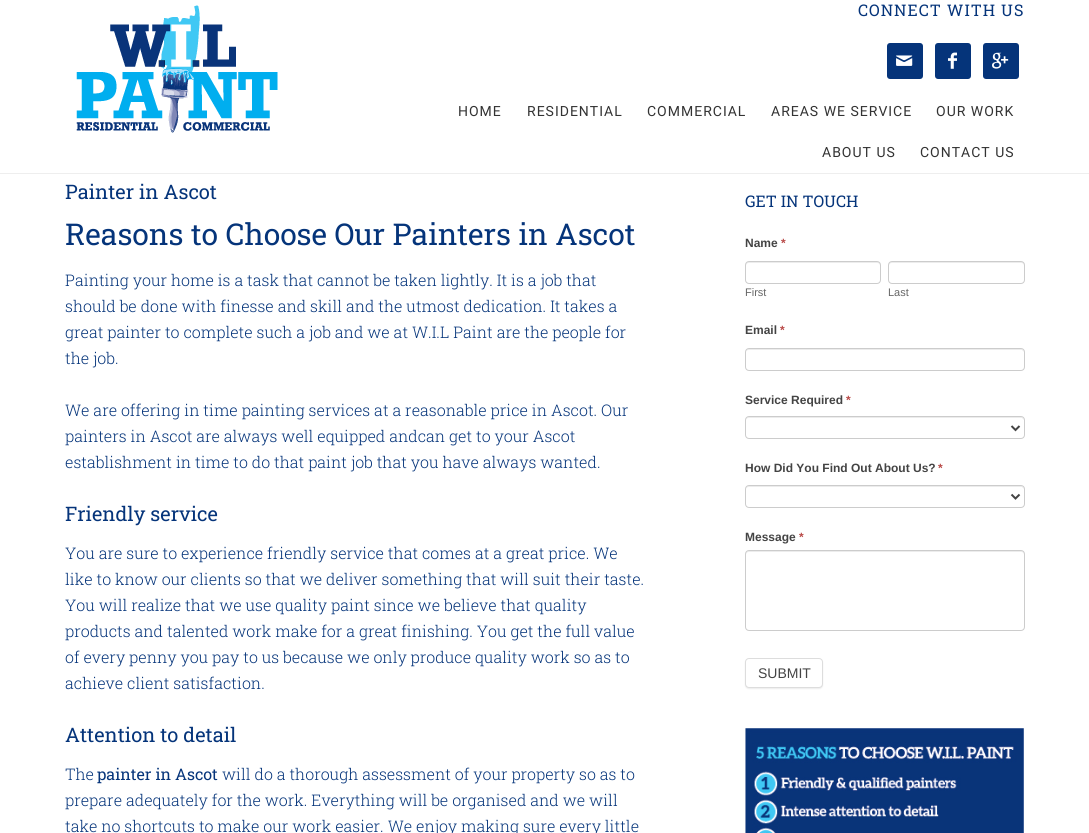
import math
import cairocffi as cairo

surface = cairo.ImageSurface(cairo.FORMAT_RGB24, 1089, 833)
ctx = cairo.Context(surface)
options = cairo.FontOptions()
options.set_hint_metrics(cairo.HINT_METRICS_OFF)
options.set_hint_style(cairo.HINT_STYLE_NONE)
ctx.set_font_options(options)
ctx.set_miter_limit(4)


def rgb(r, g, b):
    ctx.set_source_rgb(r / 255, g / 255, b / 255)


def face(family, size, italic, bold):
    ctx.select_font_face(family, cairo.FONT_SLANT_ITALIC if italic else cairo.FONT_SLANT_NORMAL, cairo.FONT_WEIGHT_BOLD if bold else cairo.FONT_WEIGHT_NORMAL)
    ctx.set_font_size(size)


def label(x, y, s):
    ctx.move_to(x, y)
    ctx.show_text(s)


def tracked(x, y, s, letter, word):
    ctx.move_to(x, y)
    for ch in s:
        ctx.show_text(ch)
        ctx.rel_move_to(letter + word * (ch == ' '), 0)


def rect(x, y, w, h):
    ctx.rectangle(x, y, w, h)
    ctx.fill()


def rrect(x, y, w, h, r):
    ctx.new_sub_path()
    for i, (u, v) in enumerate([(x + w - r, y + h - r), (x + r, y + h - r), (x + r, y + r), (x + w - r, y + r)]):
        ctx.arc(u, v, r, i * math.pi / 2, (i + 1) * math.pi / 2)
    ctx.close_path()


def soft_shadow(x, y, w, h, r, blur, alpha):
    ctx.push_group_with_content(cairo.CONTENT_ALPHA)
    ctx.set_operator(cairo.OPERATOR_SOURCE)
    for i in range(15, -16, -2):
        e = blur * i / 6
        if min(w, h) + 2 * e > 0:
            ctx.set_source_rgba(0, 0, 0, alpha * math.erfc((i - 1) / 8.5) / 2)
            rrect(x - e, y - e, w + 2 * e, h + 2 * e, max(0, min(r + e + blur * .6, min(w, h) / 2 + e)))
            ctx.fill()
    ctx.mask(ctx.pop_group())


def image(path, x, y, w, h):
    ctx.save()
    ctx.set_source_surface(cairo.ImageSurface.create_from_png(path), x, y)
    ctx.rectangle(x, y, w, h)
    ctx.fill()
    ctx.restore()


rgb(255, 255, 255)
ctx.paint()
rgb(238, 238, 238)
rect(0, 173, 1089, 1)
image('image0.png', 76, 5, 202, 128)
face('Roboto Slab', 16, 0, 0)
rgb(5, 52, 122)
tracked(858, 16, 'CONNECT WITH US', 1, 0)
rrect(887, 43, 36, 36, 3)
ctx.fill()
image('image1.png', 896, 55, 17, 11)
rrect(935, 43, 36, 36, 3)
ctx.fill()
image('image2.png', 948, 52, 9, 17)
rrect(983, 43, 36, 36, 3)
ctx.fill()
image('image3.png', 992, 52, 17, 17)
face('Roboto', 14, 0, 0)
rgb(51, 51, 51)
tracked(458, 116, 'HOME', 1, 0)
tracked(527, 116, 'RESIDENTIAL', 1, 0)
tracked(647, 116, 'COMMERCIAL', 1, 0)
tracked(771, 116, 'AREAS WE SERVICE', 1, 0)
tracked(936, 116, 'OUR WORK', 1, 0)
tracked(822, 157, 'ABOUT US', 1, 0)
tracked(920, 157, 'CONTACT US', 1, 0)
face('Roboto Slab', 20, 0, 0)
rgb(5, 52, 122)
label(65, 199, 'Painter in Ascot')
face('Roboto Slab', 30, 0, 0)
label(65, 245, 'Reasons to Choose Our Painters in Ascot')
face('Roboto Slab Light', 16, 0, 0)
label(65, 286, 'Painting your home is a task that cannot be taken lightly. It is a job that')
label(65, 312, 'should be done with finesse and skill and the utmost dedication. It takes a')
label(65, 338, 'great painter to complete such a job and we at W.I.L Paint are the people for')
label(65, 364, 'the job.')
label(65, 416, 'We are offering in time painting services at a reasonable price in Ascot. Our')
label(65, 442, 'painters in Ascot are always well equipped andcan get to your Ascot')
label(65, 468, 'establishment in time to do that paint job that you have always wanted.')
face('Roboto Slab', 20, 0, 0)
label(65, 521, 'Friendly service')
face('Roboto Slab Light', 16, 0, 0)
label(65, 559, 'You are sure to experience friendly service that comes at a great price. We')
label(65, 585, 'like to know our clients so that we deliver something that will suit their taste.')
label(65, 611, 'You will realize that we use quality paint since we believe that quality')
label(65, 637, 'products and talented work make for a great finishing. You get the full value')
label(65, 663, 'of every penny you pay to us because we only produce quality work so as to')
label(65, 689, 'achieve client satisfaction.')
face('Roboto Slab', 20, 0, 0)
label(65, 742, 'Attention to detail')
face('Roboto Slab Light', 16, 0, 0)
label(65, 780, 'The')
face('Roboto Slab', 16, 0, 0)
label(97, 780, 'painter in Ascot')
face('Roboto Slab Light', 16, 0, 0)
label(222, 780, 'will do a thorough assessment of your property so as to')
label(65, 806, 'prepare adequately for the work. Everything will be organised and we will')
label(65, 832, 'take no shortcuts to make our work easier. We enjoy making sure every little')
face('Roboto Slab', 16, 0, 0)
label(745, 207, 'GET IN TOUCH')
face('Liberation Sans', 12, 0, 1)
rgb(68, 68, 68)
label(745, 247, 'Name')
rgb(185, 74, 72)
label(781, 247, '*')
rgb(236, 236, 236)
ctx.new_path()
ctx.move_to(749, 263)
ctx.line_to(877, 263)
ctx.curve_to(879, 263, 880, 264, 880, 266)
ctx.curve_to(880, 264, 880, 262, 878, 262)
ctx.line_to(748, 262)
ctx.curve_to(746, 262, 746, 264, 746, 266)
ctx.curve_to(746, 264, 747, 263, 749, 263)
ctx.close_path()
ctx.fill()
rrect(745.5, 261.5, 135, 22, 3.5)
rgb(204, 204, 204)
ctx.set_line_width(1)
ctx.stroke()
face('Liberation Sans', 11, 0, 0)
rgb(102, 102, 102)
label(745, 296, 'First')
rgb(236, 236, 236)
ctx.new_path()
ctx.move_to(892, 263)
ctx.line_to(1021, 263)
ctx.curve_to(1023, 263, 1024, 264, 1024, 266)
ctx.curve_to(1024, 264, 1024, 262, 1022, 262)
ctx.line_to(891, 262)
ctx.curve_to(889, 262, 889, 264, 889, 266)
ctx.curve_to(889, 264, 890, 263, 892, 263)
ctx.close_path()
ctx.fill()
rrect(888.5, 261.5, 136, 22, 3.5)
rgb(204, 204, 204)
ctx.stroke()
rgb(102, 102, 102)
label(888, 296, 'Last')
face('Liberation Sans', 12, 0, 1)
rgb(68, 68, 68)
label(745, 334, 'Email')
rgb(185, 74, 72)
label(780, 334, '*')
rgb(236, 236, 236)
ctx.new_path()
ctx.move_to(749, 350)
ctx.line_to(1022, 350)
ctx.line_to(1024, 352)
ctx.curve_to(1024, 351, 1023, 349, 1021, 349)
ctx.line_to(749, 349)
ctx.curve_to(747, 349, 746, 350, 746, 352)
ctx.curve_to(746, 351, 747, 350, 749, 350)
ctx.close_path()
ctx.fill()
rrect(745.5, 348.5, 279, 22, 3.5)
rgb(204, 204, 204)
ctx.stroke()
rgb(68, 68, 68)
label(745, 404, 'Service Required')
rgb(185, 74, 72)
label(846, 404, '*')
rgb(236, 236, 236)
ctx.new_path()
ctx.move_to(749, 418)
ctx.line_to(1022, 418)
ctx.line_to(1024, 420)
ctx.curve_to(1024, 419, 1023, 417, 1021, 417)
ctx.line_to(749, 417)
ctx.curve_to(747, 417, 746, 418, 746, 420)
ctx.curve_to(746, 419, 747, 418, 749, 418)
ctx.close_path()
ctx.fill()
rrect(745.5, 416.5, 279, 22, 3.5)
rgb(204, 204, 204)
ctx.stroke()
ctx.new_path()
ctx.move_to(1011.5, 426)
ctx.line_to(1015.5, 430)
ctx.line_to(1019.5, 426)
rgb(68, 68, 68)
ctx.set_line_width(2)
ctx.stroke()
label(745, 472, 'How Did You Find Out About Us?')
rgb(185, 74, 72)
label(938, 472, '*')
rgb(236, 236, 236)
ctx.new_path()
ctx.move_to(749, 487)
ctx.line_to(1022, 487)
ctx.line_to(1024, 489)
ctx.curve_to(1024, 488, 1023, 486, 1021, 486)
ctx.line_to(749, 486)
ctx.curve_to(747, 486, 746, 487, 746, 489)
ctx.curve_to(746, 488, 747, 487, 749, 487)
ctx.close_path()
ctx.fill()
rrect(745.5, 485.5, 279, 22, 3.5)
rgb(204, 204, 204)
ctx.set_line_width(1)
ctx.stroke()
ctx.new_path()
ctx.move_to(1011.5, 494.5)
ctx.line_to(1015.5, 498.5)
ctx.line_to(1019.5, 494.5)
rgb(68, 68, 68)
ctx.set_line_width(2)
ctx.stroke()
label(745, 541, 'Message')
rgb(185, 74, 72)
label(799, 541, '*')
rgb(236, 236, 236)
ctx.new_path()
ctx.move_to(749, 552)
ctx.line_to(1021, 552)
ctx.curve_to(1023, 552, 1024, 553, 1024, 555)
ctx.line_to(1024, 554)
ctx.curve_to(1024, 552, 1023, 551, 1021, 551)
ctx.line_to(749, 551)
ctx.curve_to(747, 551, 746, 552, 746, 554)
ctx.line_to(746, 555)
ctx.curve_to(746, 553, 747, 552, 749, 552)
ctx.close_path()
ctx.fill()
rrect(745.5, 550.5, 279, 80, 3.5)
rgb(204, 204, 204)
ctx.set_line_width(1)
ctx.stroke()
rgb(238, 238, 238)
soft_shadow(745, 659, 78, 30, 4, 0.5, 1)
rgb(255, 255, 255)
rrect(745.5, 658.5, 77, 29, 3.5)
ctx.fill_preserve()
rgb(221, 221, 221)
ctx.stroke()
face('Liberation Sans', 14, 0, 0)
rgb(68, 68, 68)
label(758, 678, 'SUBMIT')
image('image4.png', 745, 728, 279, 105)
surface.write_to_png('render.png')
